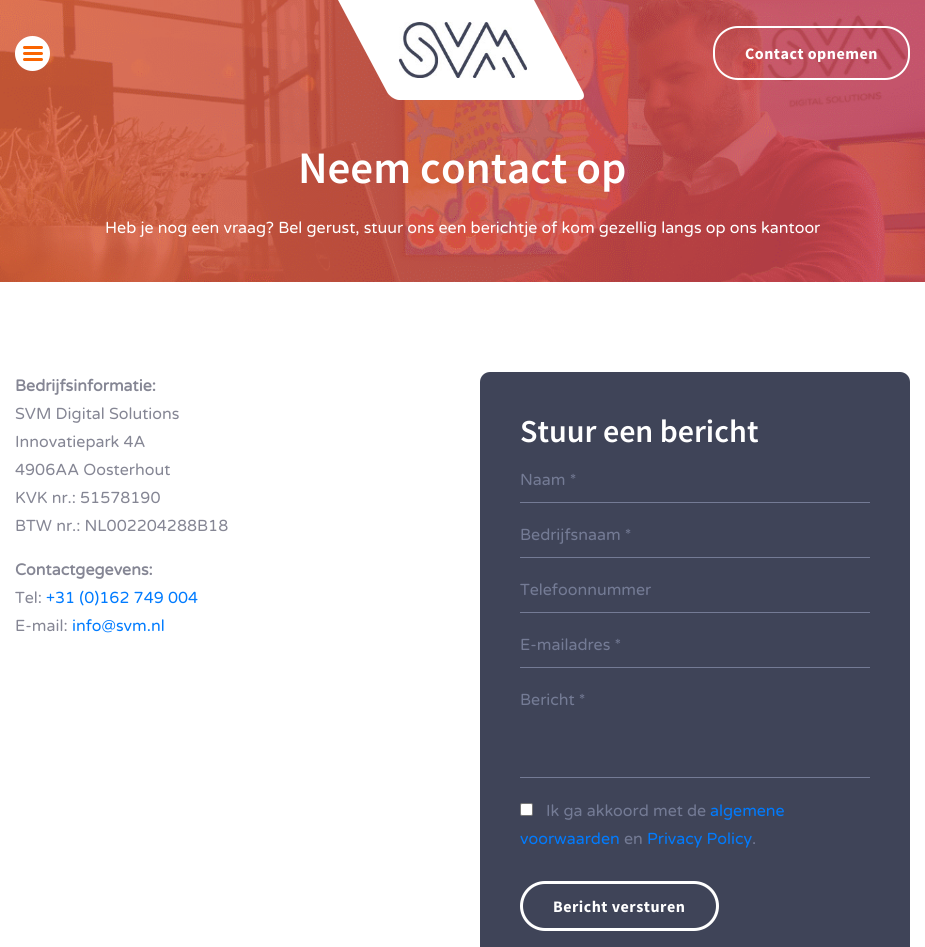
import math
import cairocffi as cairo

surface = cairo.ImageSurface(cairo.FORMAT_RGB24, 925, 947)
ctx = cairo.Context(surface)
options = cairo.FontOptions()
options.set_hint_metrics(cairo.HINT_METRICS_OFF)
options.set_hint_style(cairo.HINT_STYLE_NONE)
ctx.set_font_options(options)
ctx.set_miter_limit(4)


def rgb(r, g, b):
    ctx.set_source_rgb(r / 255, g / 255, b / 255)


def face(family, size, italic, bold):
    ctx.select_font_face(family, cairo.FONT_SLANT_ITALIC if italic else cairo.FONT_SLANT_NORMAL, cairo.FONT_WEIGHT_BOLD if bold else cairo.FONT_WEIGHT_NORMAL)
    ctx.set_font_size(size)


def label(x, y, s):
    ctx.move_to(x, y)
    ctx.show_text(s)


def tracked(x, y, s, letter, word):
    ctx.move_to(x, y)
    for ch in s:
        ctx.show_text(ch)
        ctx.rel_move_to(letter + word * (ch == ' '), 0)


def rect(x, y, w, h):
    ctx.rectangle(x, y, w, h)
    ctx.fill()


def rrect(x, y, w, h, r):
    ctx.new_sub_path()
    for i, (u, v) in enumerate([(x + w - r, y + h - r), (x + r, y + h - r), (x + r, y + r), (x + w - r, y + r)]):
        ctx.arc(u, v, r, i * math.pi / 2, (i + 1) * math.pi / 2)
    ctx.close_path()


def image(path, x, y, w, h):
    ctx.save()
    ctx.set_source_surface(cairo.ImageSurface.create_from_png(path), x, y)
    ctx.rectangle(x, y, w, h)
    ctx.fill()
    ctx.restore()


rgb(255, 255, 255)
ctx.paint()
image('image1.png', 0, 0, 925, 282)
rgb(255, 255, 255)
ctx.arc(32.5, 53.5, 17.5, 0, 2 * math.pi)
ctx.fill()
rgb(250, 100, 0)
rrect(23, 46, 20, 3, 1.5)
ctx.fill()
rrect(23, 52, 20, 3, 1.5)
ctx.fill()
rrect(23, 58, 20, 3, 1.5)
ctx.fill()
rgb(255, 255, 255)
ctx.new_path()
ctx.move_to(338, 0)
ctx.line_to(534, 0)
ctx.line_to(583, 92)
ctx.curve_to(585, 96, 584, 100, 579, 100)
ctx.line_to(399, 100)
ctx.curve_to(395, 100, 389, 96, 387, 92)
ctx.close_path()
ctx.fill()
image('image0.png', 398, 22, 129, 56)
rrect(714, 27, 195, 52, 24)
ctx.stroke()
face('Source Sans Pro', 16, 0, 1)
tracked(745, 59, 'Contact opnemen', 0.5, 0)
face('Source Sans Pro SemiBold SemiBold', 45, 0, 0)
label(298, 183, 'Neem contact op')
face('Varela Round', 16, 0, 0)
label(105, 233, 'Heb je nog een vraag? Bel gerust, stuur ons een berichtje of kom gezellig langs op ons kantoor')
face('Varela Round', 16, 0, 1)
rgb(133, 134, 148)
label(15, 391, 'Bedrijfsinformatie:')
face('Varela Round', 16, 0, 0)
label(15, 419, 'SVM Digital Solutions')
label(15, 447, 'Innovatiepark 4A')
label(15, 475, '4906AA Oosterhout')
label(15, 503, 'KVK nr.: 51578190')
label(15, 531, 'BTW nr.: NL002204288B18')
face('Varela Round', 16, 0, 1)
label(15, 575, 'Contactgegevens:')
face('Varela Round', 16, 0, 0)
label(15, 603, 'Tel:')
rgb(0, 123, 255)
label(46, 603, '+31 (0)162 749 004')
rgb(133, 134, 148)
label(15, 631, 'E-mail:')
rgb(0, 123, 255)
label(72, 631, 'info@svm.nl')
rgb(63, 68, 88)
rrect(480, 372, 430, 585, 10)
ctx.fill()
face('Source Sans Pro SemiBold SemiBold', 32, 0, 0)
rgb(255, 255, 255)
label(520, 442, 'Stuur een bericht')
rgb(116, 123, 149)
rect(520, 502, 350, 1)
face('Varela Round', 16, 0, 0)
label(520, 485, 'Naam *')
rect(520, 557, 350, 1)
label(520, 540, 'Bedrijfsnaam *')
rect(520, 612, 350, 1)
label(520, 595, 'Telefoonnummer')
rect(520, 667, 350, 1)
label(520, 650, 'E-mailadres *')
rect(520, 777, 350, 1)
label(520, 705, 'Bericht *')
rgb(255, 255, 255)
rrect(520.5, 803.5, 12, 12, 1.5)
ctx.fill_preserve()
rgb(118, 118, 118)
ctx.set_line_width(1)
ctx.stroke()
rgb(116, 123, 149)
label(546, 816, 'Ik ga akkoord met de')
rgb(0, 123, 255)
label(710, 816, 'algemene')
label(520, 844, 'voorwaarden')
rgb(116, 123, 149)
label(624, 844, 'en')
rgb(0, 123, 255)
label(647, 844, 'Privacy Policy')
rgb(116, 123, 149)
label(752, 844, '.')
rrect(521.5, 882.5, 196, 47, 23.5)
rgb(255, 255, 255)
ctx.set_line_width(3)
ctx.stroke()
face('Source Sans Pro', 16, 0, 1)
tracked(553, 912, 'Bericht versturen', 0.5, 0)
surface.write_to_png('render.png')
